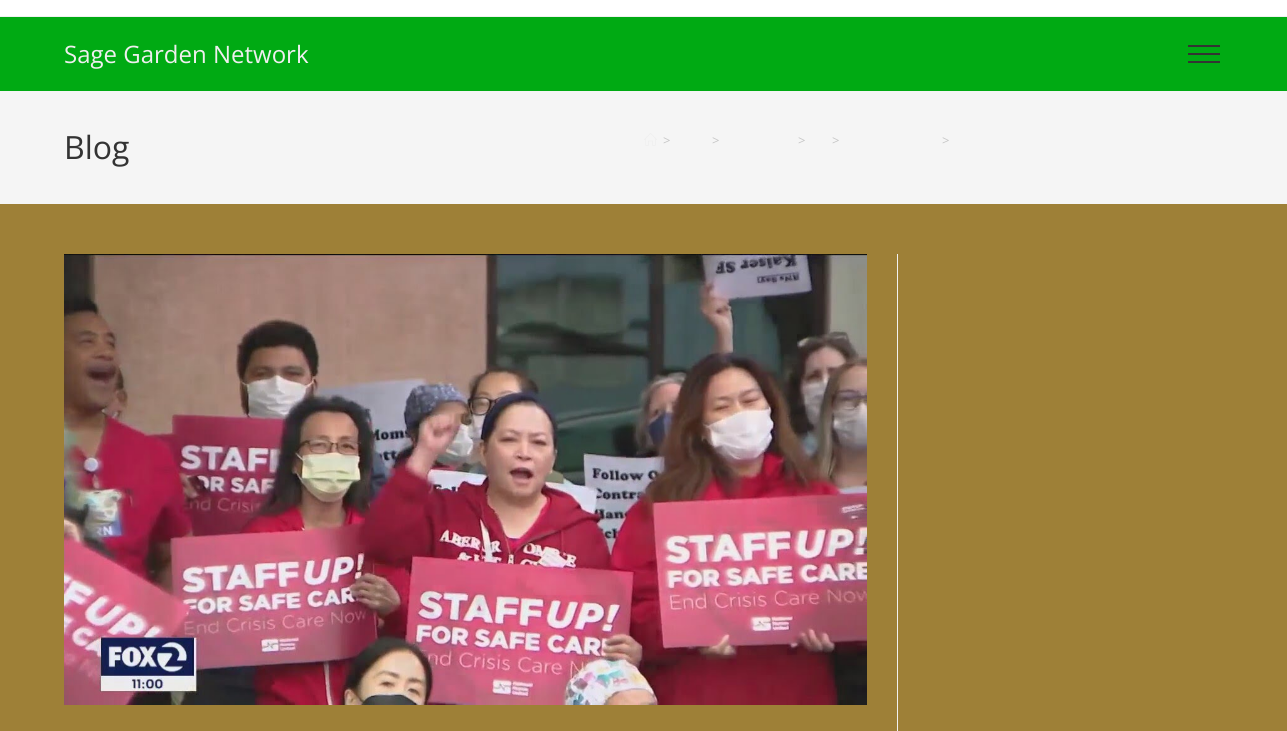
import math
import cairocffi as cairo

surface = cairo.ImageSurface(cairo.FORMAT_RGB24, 1287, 731)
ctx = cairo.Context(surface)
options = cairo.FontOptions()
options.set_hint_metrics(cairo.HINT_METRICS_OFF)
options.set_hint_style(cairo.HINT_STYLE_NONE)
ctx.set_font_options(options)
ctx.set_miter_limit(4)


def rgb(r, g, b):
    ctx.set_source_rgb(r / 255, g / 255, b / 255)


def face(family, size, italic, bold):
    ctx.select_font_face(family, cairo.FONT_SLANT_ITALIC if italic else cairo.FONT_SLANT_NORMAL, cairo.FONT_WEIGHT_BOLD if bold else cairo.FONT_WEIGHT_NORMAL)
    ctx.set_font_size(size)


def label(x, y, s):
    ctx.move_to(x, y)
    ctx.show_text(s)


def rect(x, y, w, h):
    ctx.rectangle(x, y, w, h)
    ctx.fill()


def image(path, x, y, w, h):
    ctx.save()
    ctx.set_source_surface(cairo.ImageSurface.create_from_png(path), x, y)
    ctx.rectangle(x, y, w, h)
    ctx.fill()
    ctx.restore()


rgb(158, 128, 55)
ctx.paint()
rgb(255, 255, 255)
rect(0, 0, 1287, 16)
rgb(241, 241, 241)
rect(0, 16, 1287, 1)
rgb(0, 170, 19)
rect(0, 17, 1287, 74)
face('Open Sans', 24, 0, 0)
rgb(239, 239, 239)
label(64, 63, 'Sage Garden Network')
rgb(51, 51, 51)
rect(1188, 53, 32, 2)
rect(1188, 45, 32, 2)
rect(1188, 61, 32, 2)
rgb(245, 245, 245)
rect(0, 91, 1287, 113)
face('Open Sans', 32, 0, 0)
rgb(51, 51, 51)
label(64, 159, 'Blog')
image('image0.png', 644, 133, 13, 13)
face('Open Sans', 13, 0, 0)
rgb(198, 198, 198)
label(663, 145, '>')
label(712, 145, '>')
label(798, 145, '>')
label(832, 145, '>')
label(942, 145, '>')
rgb(241, 241, 241)
rect(897, 254, 1, 477)
image('image1.png', 64, 254, 803, 451)
surface.write_to_png('render.png')
